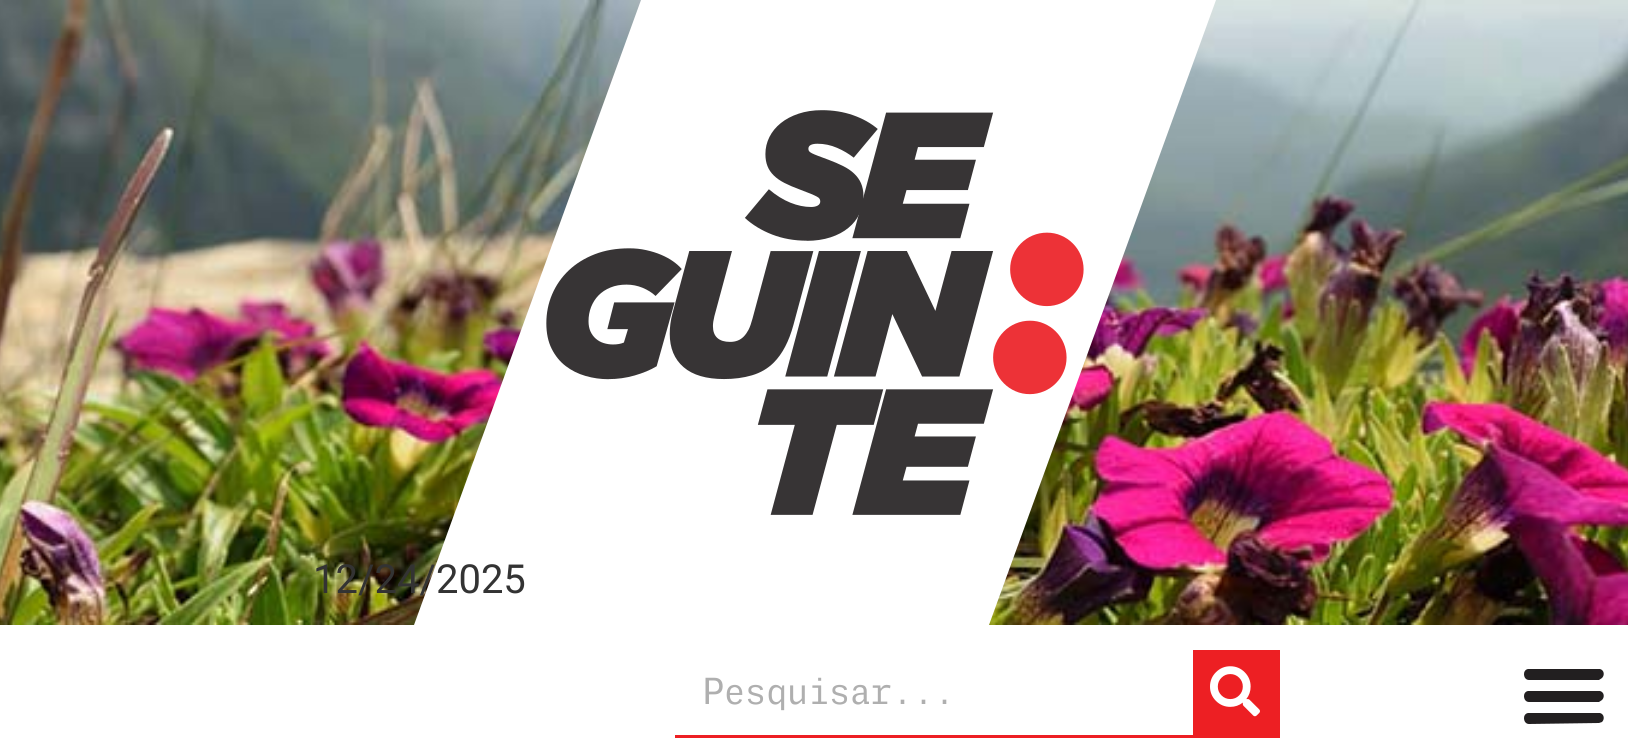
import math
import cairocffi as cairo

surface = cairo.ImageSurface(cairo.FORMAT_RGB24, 1628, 747)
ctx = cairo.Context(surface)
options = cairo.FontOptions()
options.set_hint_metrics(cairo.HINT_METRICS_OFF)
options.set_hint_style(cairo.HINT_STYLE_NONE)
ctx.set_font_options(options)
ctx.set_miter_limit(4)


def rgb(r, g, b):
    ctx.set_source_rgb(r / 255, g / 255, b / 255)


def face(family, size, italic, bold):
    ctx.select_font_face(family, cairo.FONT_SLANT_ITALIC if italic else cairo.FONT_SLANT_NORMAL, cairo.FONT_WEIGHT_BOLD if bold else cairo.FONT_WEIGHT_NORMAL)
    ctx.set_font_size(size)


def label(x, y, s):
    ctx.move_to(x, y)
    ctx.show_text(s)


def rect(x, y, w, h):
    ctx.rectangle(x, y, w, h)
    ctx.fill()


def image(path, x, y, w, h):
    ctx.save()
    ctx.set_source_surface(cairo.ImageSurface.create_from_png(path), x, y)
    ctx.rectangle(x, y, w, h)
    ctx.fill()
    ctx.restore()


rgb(255, 255, 255)
ctx.paint()
image('image0.png', 0, 0, 1628, 625)
rgb(255, 255, 255)
ctx.new_path()
ctx.move_to(641, 0)
ctx.line_to(1216, 0)
ctx.line_to(989, 625)
ctx.line_to(414, 625)
ctx.close_path()
ctx.fill()
image('image1.png', 546, 110, 538, 405)
face('Roboto', 40, 0, 0)
rgb(51, 51, 51)
label(313, 593, '12/24/2025')
rgb(237, 31, 35)
rect(675, 735, 605, 3)
face('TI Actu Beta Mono', 37.5, 0, 0)
rgb(175, 175, 175)
label(703, 704, 'Pesquisar...')
rgb(237, 31, 35)
rect(1193, 650, 87, 85)
image('image2.png', 1210, 666, 50, 51)
rgb(34, 31, 32)
ctx.new_path()
ctx.move_to(1529, 680)
ctx.line_to(1599, 680)
ctx.line_to(1602, 678)
ctx.curve_to(1605, 675, 1604, 670, 1600, 669)
ctx.line_to(1528, 669)
ctx.curve_to(1522, 670, 1523, 680, 1529, 680)
ctx.close_path()
ctx.move_to(1529, 702)
ctx.line_to(1599, 702)
ctx.line_to(1602, 700)
ctx.curve_to(1605, 697, 1604, 692, 1600, 691)
ctx.line_to(1528, 691)
ctx.curve_to(1522, 692, 1523, 702, 1529, 702)
ctx.close_path()
ctx.move_to(1529, 724)
ctx.line_to(1599, 723)
ctx.line_to(1602, 722)
ctx.curve_to(1605, 719, 1604, 714, 1600, 713)
ctx.line_to(1528, 713)
ctx.curve_to(1522, 714, 1523, 724, 1529, 724)
ctx.close_path()
ctx.fill()
surface.write_to_png('render.png')
